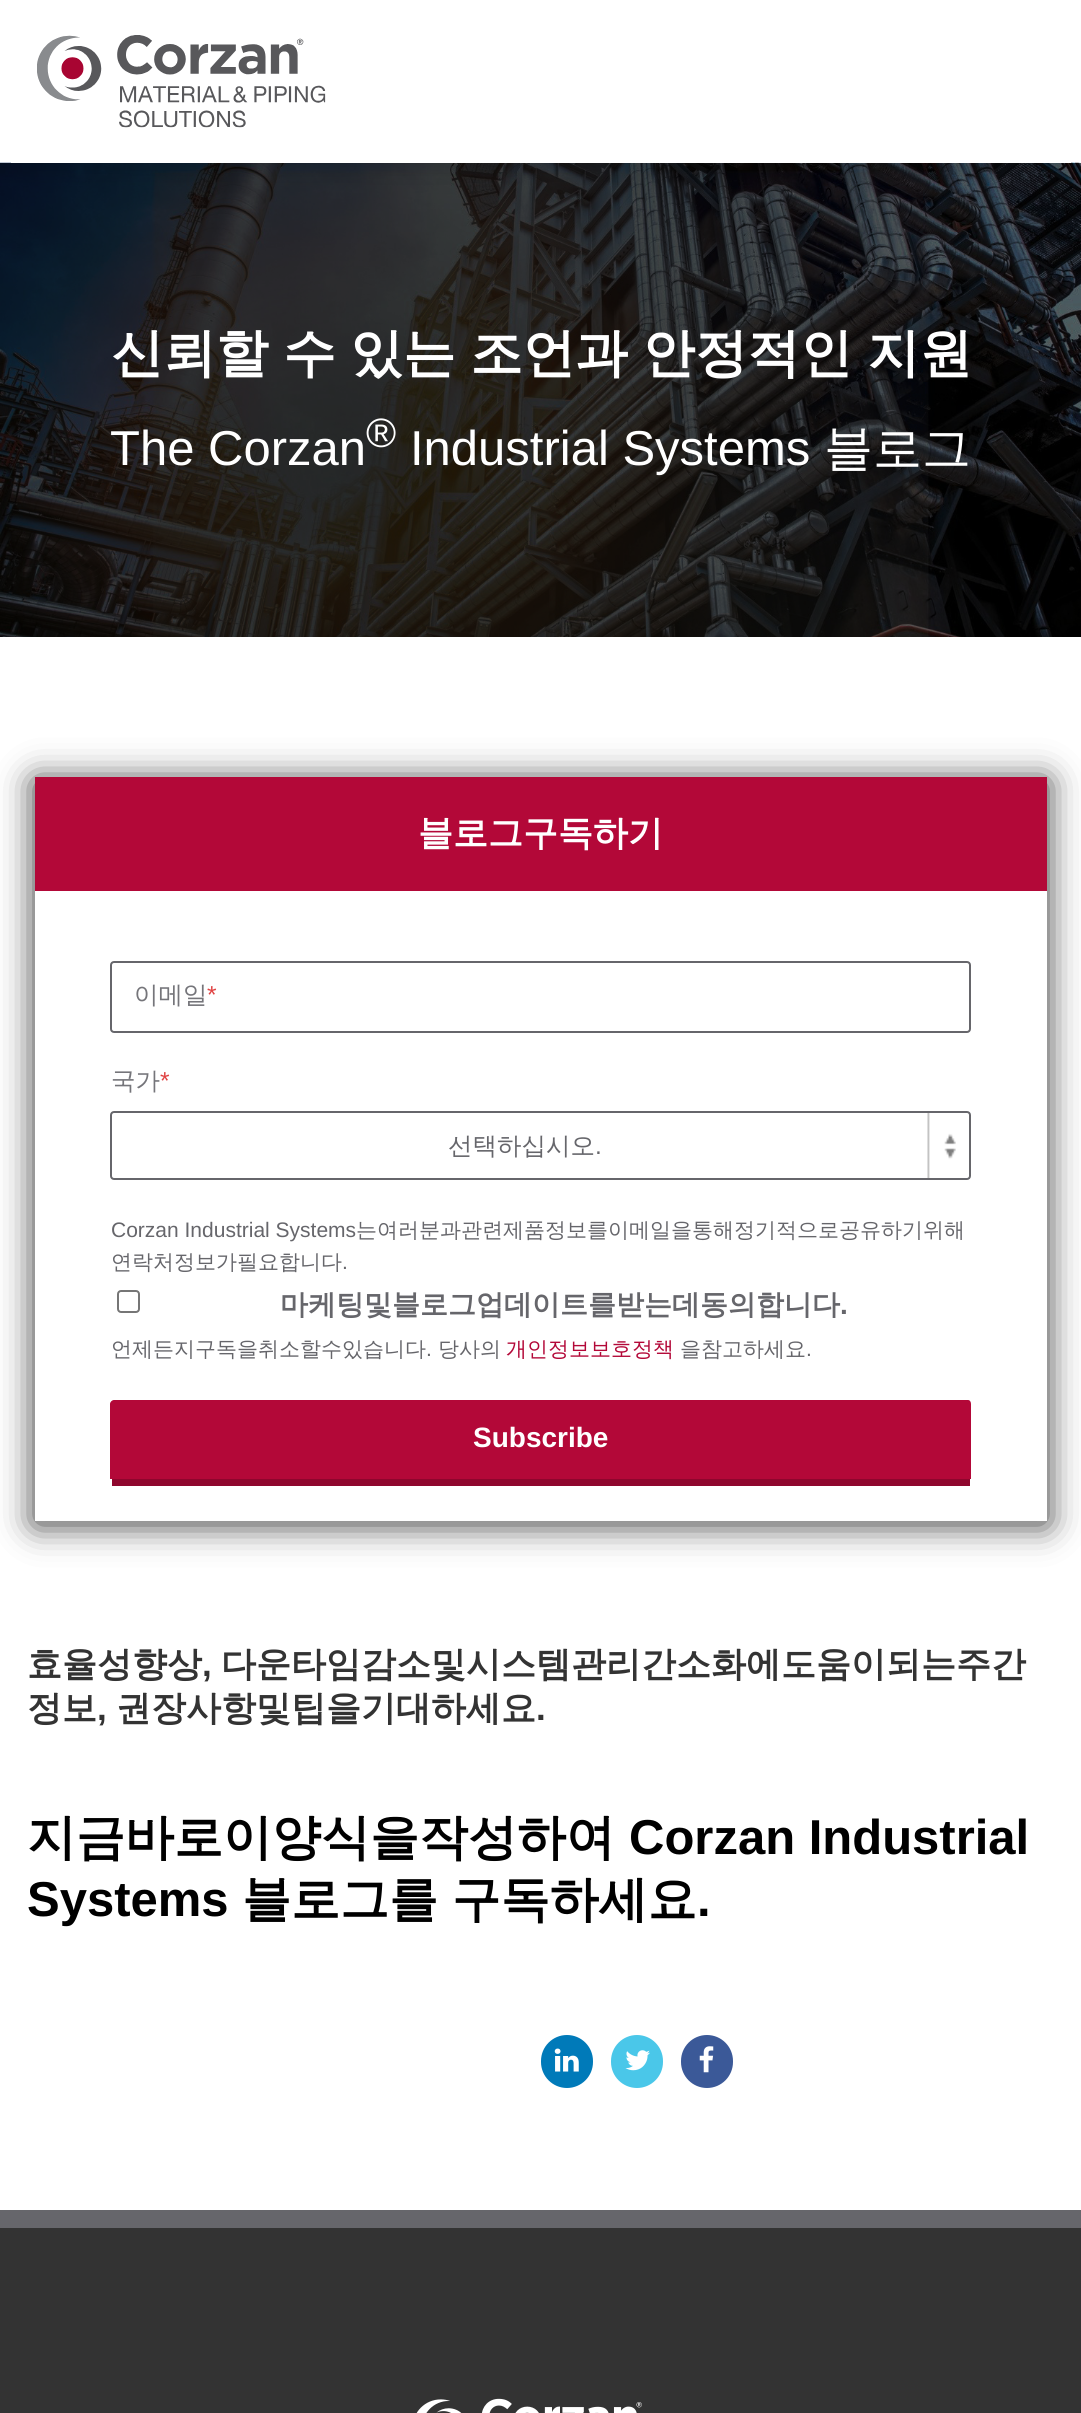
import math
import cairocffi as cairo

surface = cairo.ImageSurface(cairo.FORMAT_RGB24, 1081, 2413)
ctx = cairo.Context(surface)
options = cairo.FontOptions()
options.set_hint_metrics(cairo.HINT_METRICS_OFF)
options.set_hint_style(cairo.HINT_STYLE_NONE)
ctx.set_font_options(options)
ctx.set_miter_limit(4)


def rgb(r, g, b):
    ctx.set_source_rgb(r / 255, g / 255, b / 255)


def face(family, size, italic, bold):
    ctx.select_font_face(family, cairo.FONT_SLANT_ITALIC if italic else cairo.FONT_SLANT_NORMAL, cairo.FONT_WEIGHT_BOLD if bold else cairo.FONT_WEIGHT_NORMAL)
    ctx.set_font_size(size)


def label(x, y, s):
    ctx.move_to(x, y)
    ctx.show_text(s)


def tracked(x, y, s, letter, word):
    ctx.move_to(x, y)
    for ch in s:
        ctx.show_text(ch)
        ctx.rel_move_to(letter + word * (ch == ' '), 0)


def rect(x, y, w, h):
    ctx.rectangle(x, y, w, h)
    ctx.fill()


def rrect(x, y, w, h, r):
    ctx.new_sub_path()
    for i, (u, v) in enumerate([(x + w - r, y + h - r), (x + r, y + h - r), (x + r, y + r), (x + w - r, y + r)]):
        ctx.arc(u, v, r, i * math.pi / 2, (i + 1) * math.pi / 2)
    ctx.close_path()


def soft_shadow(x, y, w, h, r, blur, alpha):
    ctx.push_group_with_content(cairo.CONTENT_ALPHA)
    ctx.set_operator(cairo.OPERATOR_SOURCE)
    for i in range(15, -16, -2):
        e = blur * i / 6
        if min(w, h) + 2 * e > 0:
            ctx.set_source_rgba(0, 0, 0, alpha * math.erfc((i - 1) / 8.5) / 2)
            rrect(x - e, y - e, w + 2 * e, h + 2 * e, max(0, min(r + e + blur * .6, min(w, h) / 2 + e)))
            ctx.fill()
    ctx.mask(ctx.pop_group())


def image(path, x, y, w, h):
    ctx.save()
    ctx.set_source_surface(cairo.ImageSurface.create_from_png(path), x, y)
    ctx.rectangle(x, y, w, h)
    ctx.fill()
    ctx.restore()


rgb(255, 255, 255)
ctx.paint()
image('image1.png', 0, 162, 1081, 475)
ctx.save()
ctx.set_fill_rule(cairo.FILL_RULE_EVEN_ODD)
ctx.new_path()
ctx.move_to(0, 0)
ctx.line_to(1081, 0)
ctx.line_to(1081, 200)
ctx.line_to(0, 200)
ctx.close_path()
ctx.move_to(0, 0)
ctx.line_to(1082, 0)
ctx.line_to(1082, 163)
ctx.line_to(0, 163)
ctx.close_path()
ctx.clip()
rgb(0, 0, 0)
soft_shadow(-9, -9, 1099, 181, 0, 9, 0.15)
ctx.restore()
rgb(255, 255, 255)
rect(11, 162, 1060, 1)
image('image0.png', 37, 35, 289, 93)
face('WenQuanYi Zen Hei', 52.5, 0, 1)
tracked(111, 371, '신뢰할 수 있는 조언과 안정적인 지원', 0, -1)
face('Liberation Sans', 49, 0, 0)
label(110, 465, 'The Corzan')
face('Liberation Sans', 41, 0, 0)
label(366, 447, '®')
face('Liberation Sans', 49, 0, 0)
label(410, 465, 'Industrial Systems')
face('WenQuanYi Zen Hei Medium', 49, 0, 0)
label(824, 465, '블로그')
ctx.save()
ctx.set_fill_rule(cairo.FILL_RULE_EVEN_ODD)
ctx.new_path()
ctx.move_to(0, 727)
ctx.line_to(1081, 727)
ctx.line_to(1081, 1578)
ctx.line_to(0, 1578)
ctx.close_path()
ctx.move_to(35, 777)
ctx.line_to(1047, 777)
ctx.line_to(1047, 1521)
ctx.line_to(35, 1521)
ctx.close_path()
ctx.clip()
rgb(51, 51, 51)
soft_shadow(35, 781, 1012, 743, 0, 17.5, 1)
ctx.restore()
rgb(179, 8, 56)
rect(35, 777, 1012, 114)
face('WenQuanYi Zen Hei', 35, 0, 1)
rgb(255, 255, 255)
label(418, 845, '블로그구독하기')
rect(110, 1520, 861, 1)
rrect(111, 962, 859, 70, 3)
rgb(102, 102, 107)
ctx.stroke()
face('WenQuanYi Zen Hei Medium', 24.5, 0, 0)
rgb(117, 117, 122)
label(134, 1003, '이메일')
face('Liberation Sans', 24.5, 0, 0)
rgb(224, 66, 66)
label(207, 1003, '*')
face('WenQuanYi Zen Hei Medium', 24.5, 0, 0)
rgb(117, 117, 122)
label(111, 1089, '국가')
face('Liberation Sans', 24.5, 0, 0)
rgb(224, 66, 66)
label(160, 1089, '*')
image('image2.png', 927, 1113, 29, 65)
rrect(111, 1112, 859, 67, 3)
rgb(102, 102, 107)
ctx.stroke()
face('WenQuanYi Zen Hei Medium', 24.5, 0, 0)
label(448, 1154, '선택하십시오')
face('Liberation Sans', 24.5, 0, 0)
label(595, 1154, '.')
face('Liberation Sans', 21, 0, 0)
label(111, 1237, 'Corzan Industrial Systems')
face('WenQuanYi Zen Hei Medium', 21, 0, 0)
label(356, 1237, '는여러분과관련제품정보를이메일을통해정기적으로공유하기위해')
label(111, 1269, '연락처정보가필요합니다')
face('Liberation Sans', 21, 0, 0)
label(342, 1269, '.')
rrect(118, 1291, 21, 21, 3)
rgb(118, 118, 118)
ctx.stroke()
face('WenQuanYi Zen Hei', 28, 0, 1)
rgb(102, 102, 107)
label(280, 1314, '마케팅및블로그업데이트를받는데동의합니다')
face('Liberation Sans', 28, 0, 1)
label(840, 1314, '.')
face('WenQuanYi Zen Hei Medium', 21, 0, 0)
label(111, 1356, '언제든지구독을취소할수있습니다')
face('Liberation Sans', 21, 0, 0)
label(426, 1356, '.')
face('WenQuanYi Zen Hei Medium', 21, 0, 0)
label(438, 1356, '당사의')
rgb(179, 8, 56)
label(506, 1356, '개인정보보호정책')
rgb(102, 102, 107)
label(680, 1356, '을참고하세요')
face('Liberation Sans', 21, 0, 0)
label(806, 1356, '.')
rgb(179, 8, 56)
ctx.new_path()
ctx.move_to(114, 1400)
ctx.line_to(968, 1400)
ctx.curve_to(970, 1400, 971, 1402, 971, 1404)
ctx.line_to(971, 1479)
ctx.line_to(110, 1479)
ctx.line_to(110, 1404)
ctx.curve_to(110, 1402, 112, 1400, 114, 1400)
ctx.close_path()
ctx.fill()
rgb(143, 6, 45)
rect(112, 1479, 858, 7)
face('Liberation Sans', 28, 0, 1)
rgb(255, 255, 255)
label(473, 1447, 'Subscribe')
face('WenQuanYi Zen Hei', 35, 0, 1)
rgb(51, 51, 51)
label(27, 1676, '효율성향상')
face('Liberation Sans', 35, 0, 1)
label(202, 1676, ',')
face('WenQuanYi Zen Hei', 35, 0, 1)
label(221, 1676, '다운타임감소및시스템관리간소화에도움이되는주간')
label(27, 1720, '정보')
face('Liberation Sans', 35, 0, 1)
label(97, 1720, ',')
face('WenQuanYi Zen Hei', 35, 0, 1)
label(116, 1720, '권장사항및팁을기대하세요')
face('Liberation Sans', 35, 0, 1)
label(536, 1720, '.')
face('WenQuanYi Zen Hei', 49, 0, 1)
rgb(0, 0, 0)
label(27, 1854, '지금바로이양식을작성하여')
face('Liberation Sans', 49, 0, 1)
label(629, 1854, 'Corzan Industrial')
label(27, 1916, 'Systems')
face('WenQuanYi Zen Hei', 49, 0, 1)
tracked(242, 1916, '블로그를 구독하세요', 0, -1)
face('Liberation Sans', 49, 0, 1)
label(697, 1916, '.')
rgb(0, 122, 185)
rrect(541, 2035, 52, 53, 26)
ctx.fill()
image('image3.png', 554, 2048, 25, 24)
rgb(74, 199, 233)
rrect(611, 2035, 52, 53, 26)
ctx.fill()
image('image4.png', 625, 2050, 25, 21)
rgb(59, 89, 152)
rrect(681, 2035, 52, 53, 26)
ctx.fill()
image('image5.png', 699, 2046, 15, 27)
rgb(51, 51, 51)
rect(0, 2228, 1081, 185)
rgb(102, 102, 107)
rect(0, 2210, 1081, 18)
image('image6.png', 416, 2398, 226, 15)
surface.write_to_png('render.png')
